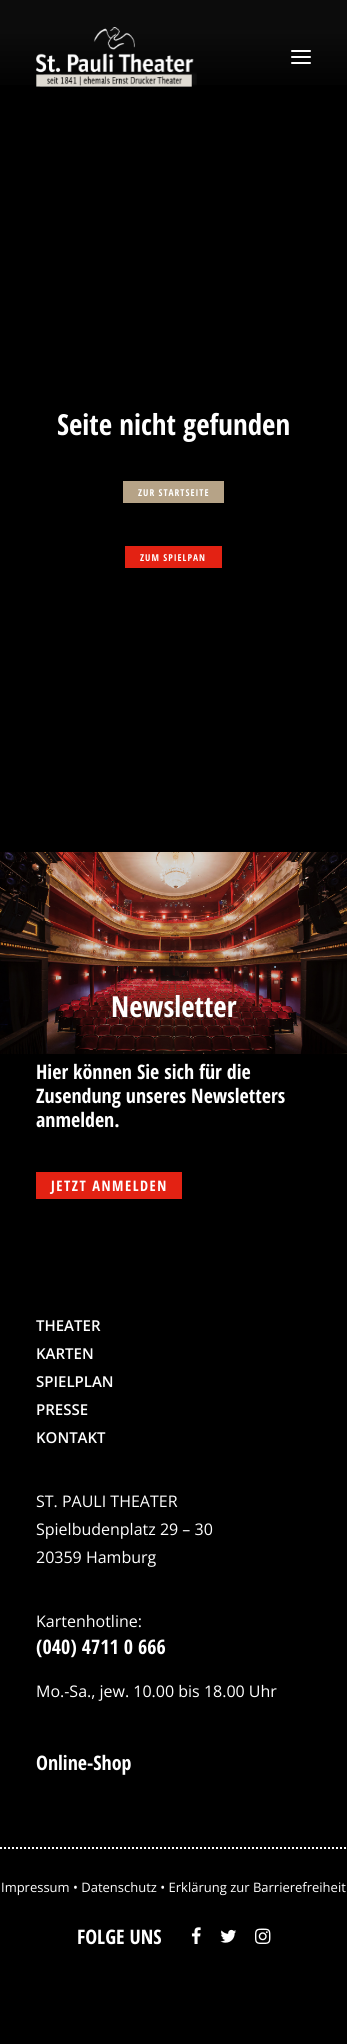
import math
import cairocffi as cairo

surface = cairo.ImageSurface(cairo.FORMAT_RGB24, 347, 2044)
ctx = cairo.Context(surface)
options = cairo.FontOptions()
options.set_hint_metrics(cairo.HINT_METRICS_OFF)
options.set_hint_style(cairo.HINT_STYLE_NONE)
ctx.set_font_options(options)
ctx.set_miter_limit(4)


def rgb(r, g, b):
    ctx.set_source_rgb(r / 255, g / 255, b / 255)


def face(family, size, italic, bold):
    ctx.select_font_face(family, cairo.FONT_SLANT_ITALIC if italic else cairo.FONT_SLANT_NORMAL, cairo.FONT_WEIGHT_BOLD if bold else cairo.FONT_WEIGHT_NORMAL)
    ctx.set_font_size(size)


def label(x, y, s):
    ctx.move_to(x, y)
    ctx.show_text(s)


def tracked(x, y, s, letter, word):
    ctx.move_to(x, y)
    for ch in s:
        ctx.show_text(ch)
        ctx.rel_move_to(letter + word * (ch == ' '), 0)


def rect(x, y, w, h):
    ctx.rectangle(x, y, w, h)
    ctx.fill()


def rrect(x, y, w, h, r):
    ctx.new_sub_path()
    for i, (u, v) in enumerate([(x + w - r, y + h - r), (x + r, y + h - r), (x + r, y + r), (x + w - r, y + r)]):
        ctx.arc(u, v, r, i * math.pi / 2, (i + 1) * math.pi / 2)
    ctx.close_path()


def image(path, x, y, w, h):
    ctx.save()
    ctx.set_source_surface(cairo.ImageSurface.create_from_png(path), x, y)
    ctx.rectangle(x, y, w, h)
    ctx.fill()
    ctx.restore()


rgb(0, 0, 0)
ctx.paint()
image('image0.png', 0, 852, 347, 202)
gradient = cairo.LinearGradient(174, 0, 174, 114)
gradient.add_color_stop_rgba(0.27, 0.047, 0.047, 0.047, 1)
gradient.add_color_stop_rgba(0.87, 0, 0, 0, 1)
ctx.set_source(gradient)
rect(0, 0, 347, 85)
image('image1.png', 36, 27, 161, 60)
rgb(255, 255, 255)
rrect(291, 56, 20, 2, 1)
ctx.fill()
rrect(291, 50, 20, 2, 1)
ctx.fill()
rrect(291, 62, 20, 2, 1)
ctx.fill()
face('Open Sans Condensed', 29, 0, 1)
label(57, 435, 'Seite nicht gefunden')
rgb(182, 163, 135)
rect(123, 481, 101, 22)
face('Open Sans Condensed', 9.5, 0, 1)
rgb(255, 255, 255)
tracked(138, 496, 'ZUR STARTSEITE', 1, 0)
rgb(227, 34, 19)
rect(125, 546, 97, 22)
rgb(255, 255, 255)
tracked(140, 561, 'ZUM SPIELPAN', 1, 0)
gradient = cairo.LinearGradient(173, 809, 174, 2044)
gradient.add_color_stop_rgba(0, 0, 0, 0, 0)
gradient.add_color_stop_rgba(0.7, 0, 0, 0, 1)
ctx.set_source(gradient)
rect(0, 852, 347, 202)
face('Open Sans Condensed', 29, 0, 1)
rgb(255, 255, 255)
label(111, 1017, 'Newsletter')
face('Open Sans Condensed', 20, 0, 1)
label(36, 1079, 'Hier können Sie sich für die')
label(36, 1103, 'Zusendung unseres Newsletters')
label(36, 1127, 'anmelden.')
rgb(227, 34, 19)
rect(36, 1172, 146, 27)
face('Open Sans Condensed', 14.5, 0, 1)
rgb(255, 255, 255)
tracked(51, 1191, 'JETZT ANMELDEN', 1.5, 0)
face('Open Sans SemiBold', 15, 0, 0)
label(36, 1331, 'THEATER')
label(36, 1359, 'KARTEN')
label(36, 1387, 'SPIELPLAN')
label(36, 1415, 'PRESSE')
label(36, 1443, 'KONTAKT')
face('Open Sans', 16, 0, 0)
label(36, 1507, 'ST. PAULI THEATER')
label(36, 1535, 'Spielbudenplatz 29 – 30')
label(36, 1563, '20359 Hamburg')
label(36, 1627, 'Kartenhotline:')
face('Open Sans Condensed', 20, 0, 1)
label(36, 1654, '(040) 4711 0 666')
face('Open Sans', 16, 0, 0)
label(36, 1697, 'Mo.-Sa., jew. 10.00 bis 18.00 Uhr')
face('Open Sans Condensed', 20, 0, 1)
label(36, 1770, 'Online-Shop')
ctx.new_path()
ctx.move_to(0, 1848)
ctx.line_to(347, 1848)
ctx.set_dash([2, 2])
ctx.stroke()
face('Open Sans', 13, 0, 0)
label(1, 1892, 'Impressum • Datenschutz • Erklärung zur Barrierefreiheit')
face('Open Sans Condensed', 20, 0, 1)
label(77, 1944, 'FOLGE UNS')
image('image2.png', 191, 1927, 10, 17)
image('image3.png', 220, 1929, 17, 14)
image('image4.png', 255, 1928, 16, 16)
surface.write_to_png('render.png')
